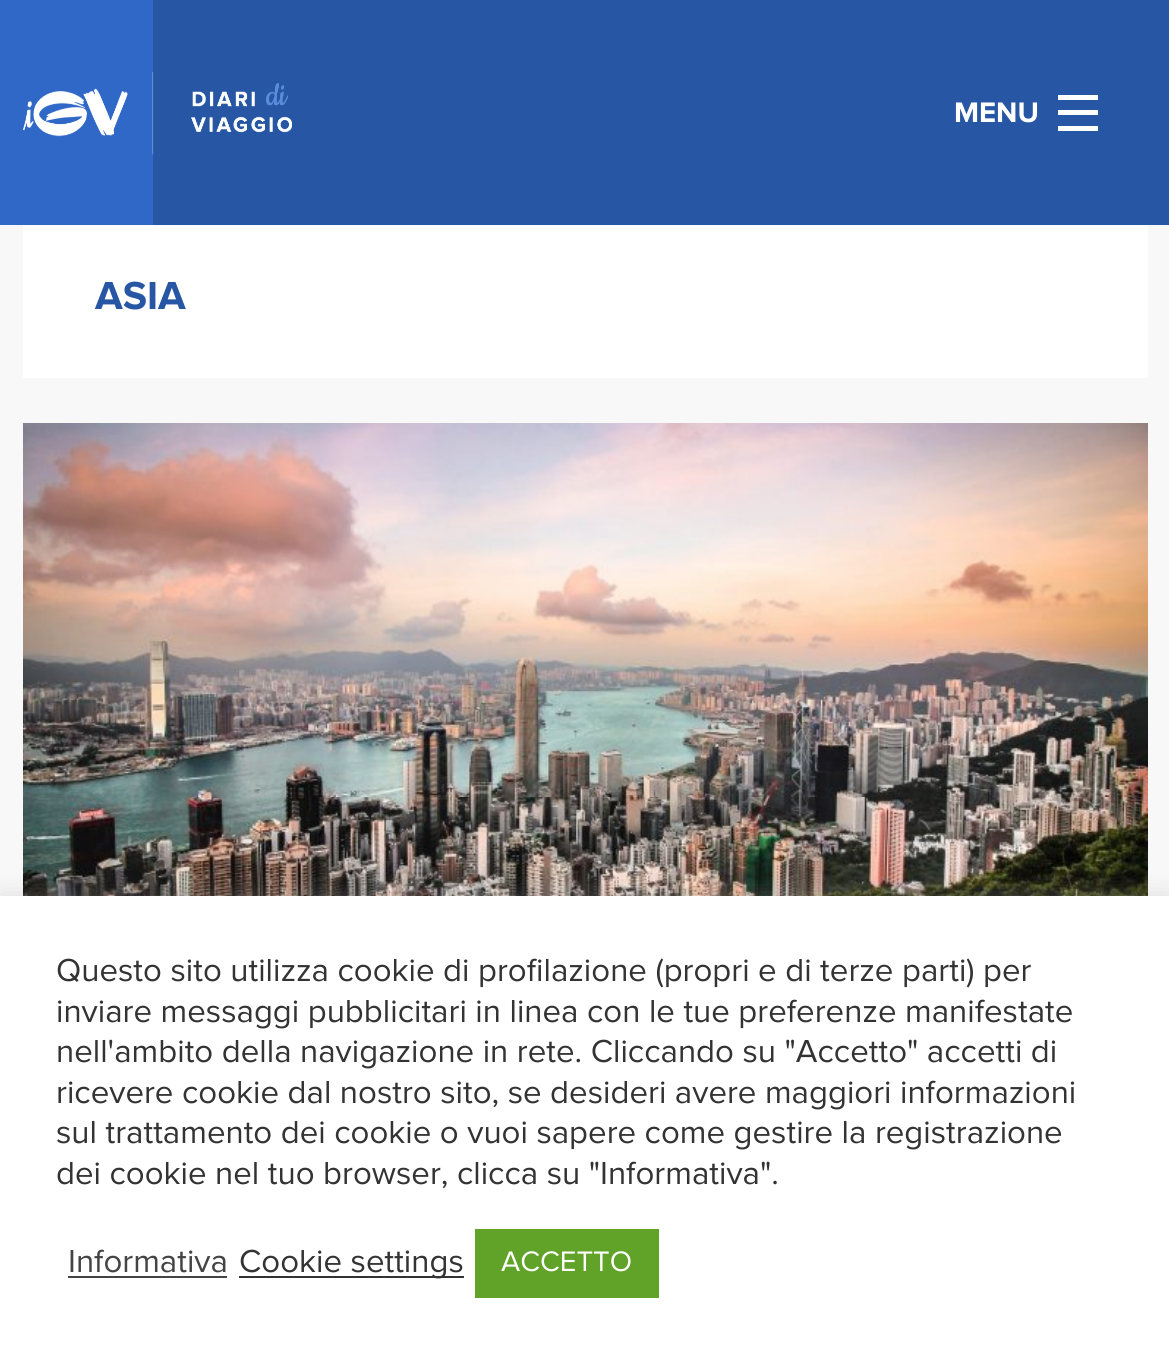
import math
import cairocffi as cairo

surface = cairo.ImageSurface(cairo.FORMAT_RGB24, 1169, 1365)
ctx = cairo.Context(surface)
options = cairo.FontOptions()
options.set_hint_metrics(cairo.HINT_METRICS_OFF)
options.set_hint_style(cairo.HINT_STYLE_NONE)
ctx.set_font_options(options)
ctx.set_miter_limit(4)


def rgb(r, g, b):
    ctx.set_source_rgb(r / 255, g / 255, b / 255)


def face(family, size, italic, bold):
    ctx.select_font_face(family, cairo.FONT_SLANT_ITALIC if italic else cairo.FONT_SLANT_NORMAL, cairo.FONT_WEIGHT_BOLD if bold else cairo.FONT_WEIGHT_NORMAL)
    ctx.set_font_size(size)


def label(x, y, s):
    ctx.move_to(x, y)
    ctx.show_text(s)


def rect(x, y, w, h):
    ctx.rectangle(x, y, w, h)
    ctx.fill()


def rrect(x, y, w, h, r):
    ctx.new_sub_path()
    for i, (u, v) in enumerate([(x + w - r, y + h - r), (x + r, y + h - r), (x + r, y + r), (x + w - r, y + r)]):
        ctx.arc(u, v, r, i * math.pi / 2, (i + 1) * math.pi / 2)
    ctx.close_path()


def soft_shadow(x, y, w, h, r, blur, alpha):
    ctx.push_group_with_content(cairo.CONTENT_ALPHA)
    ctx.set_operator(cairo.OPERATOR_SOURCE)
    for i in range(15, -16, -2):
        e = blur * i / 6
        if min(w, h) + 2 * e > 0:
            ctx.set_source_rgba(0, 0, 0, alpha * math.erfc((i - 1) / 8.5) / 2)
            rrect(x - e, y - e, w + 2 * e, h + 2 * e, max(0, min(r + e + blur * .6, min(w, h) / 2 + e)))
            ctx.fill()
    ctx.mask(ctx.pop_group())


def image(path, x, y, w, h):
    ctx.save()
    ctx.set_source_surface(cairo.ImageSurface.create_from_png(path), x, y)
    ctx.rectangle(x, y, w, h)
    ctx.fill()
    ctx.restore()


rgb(248, 248, 248)
ctx.paint()
rgb(39, 86, 164)
rect(153, 0, 1016, 225)
rgb(47, 104, 199)
rect(0, 0, 153, 225)
image('image0.png', 23, 72, 269, 83)
face('Proxima Nova', 29.25, 0, 1)
rgb(255, 255, 255)
label(954, 122, 'MENU')
rect(1058, 126, 40, 5)
rect(1058, 110, 40, 5)
rect(1058, 95, 40, 5)
rect(23, 225, 1125, 153)
face('Proxima Nova', 40.5, 0, 1)
rgb(39, 86, 164)
label(95, 309, 'ASIA')
image('image1.png', 23, 423, 1125, 473)
rgb(172, 171, 171)
soft_shadow(0, 893, 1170, 471, 0, 11, 0.3)
rgb(255, 255, 255)
rect(0, 896, 1169, 469)
face('Proxima Nova', 33, 0, 0)
rgb(51, 51, 51)
label(56, 981, 'Questo sito utilizza cookie di profilazione (propri e di terze parti) per')
label(56, 1022, 'inviare messaggi pubblicitari in linea con le tue preferenze manifestate')
label(56, 1062, 'nell\'ambito della navigazione in rete. Cliccando su "Accetto" accetti di')
label(56, 1103, 'ricevere cookie dal nostro sito, se desideri avere maggiori informazioni')
label(56, 1143, 'sul trattamento dei cookie o vuoi sapere come gestire la registrazione')
label(56, 1184, 'dei cookie nel tuo browser, clicca su "Informativa".')
rgb(68, 68, 68)
label(68, 1272, 'Informativa')
rect(68, 1276, 159, 2)
rgb(51, 51, 51)
rect(239, 1276, 225, 2)
label(239, 1272, 'Cookie settings')
rgb(97, 162, 41)
rect(475, 1229, 184, 69)
face('Proxima Nova', 29.25, 0, 0)
rgb(255, 255, 255)
label(501, 1271, 'ACCETTO')
surface.write_to_png('render.png')
